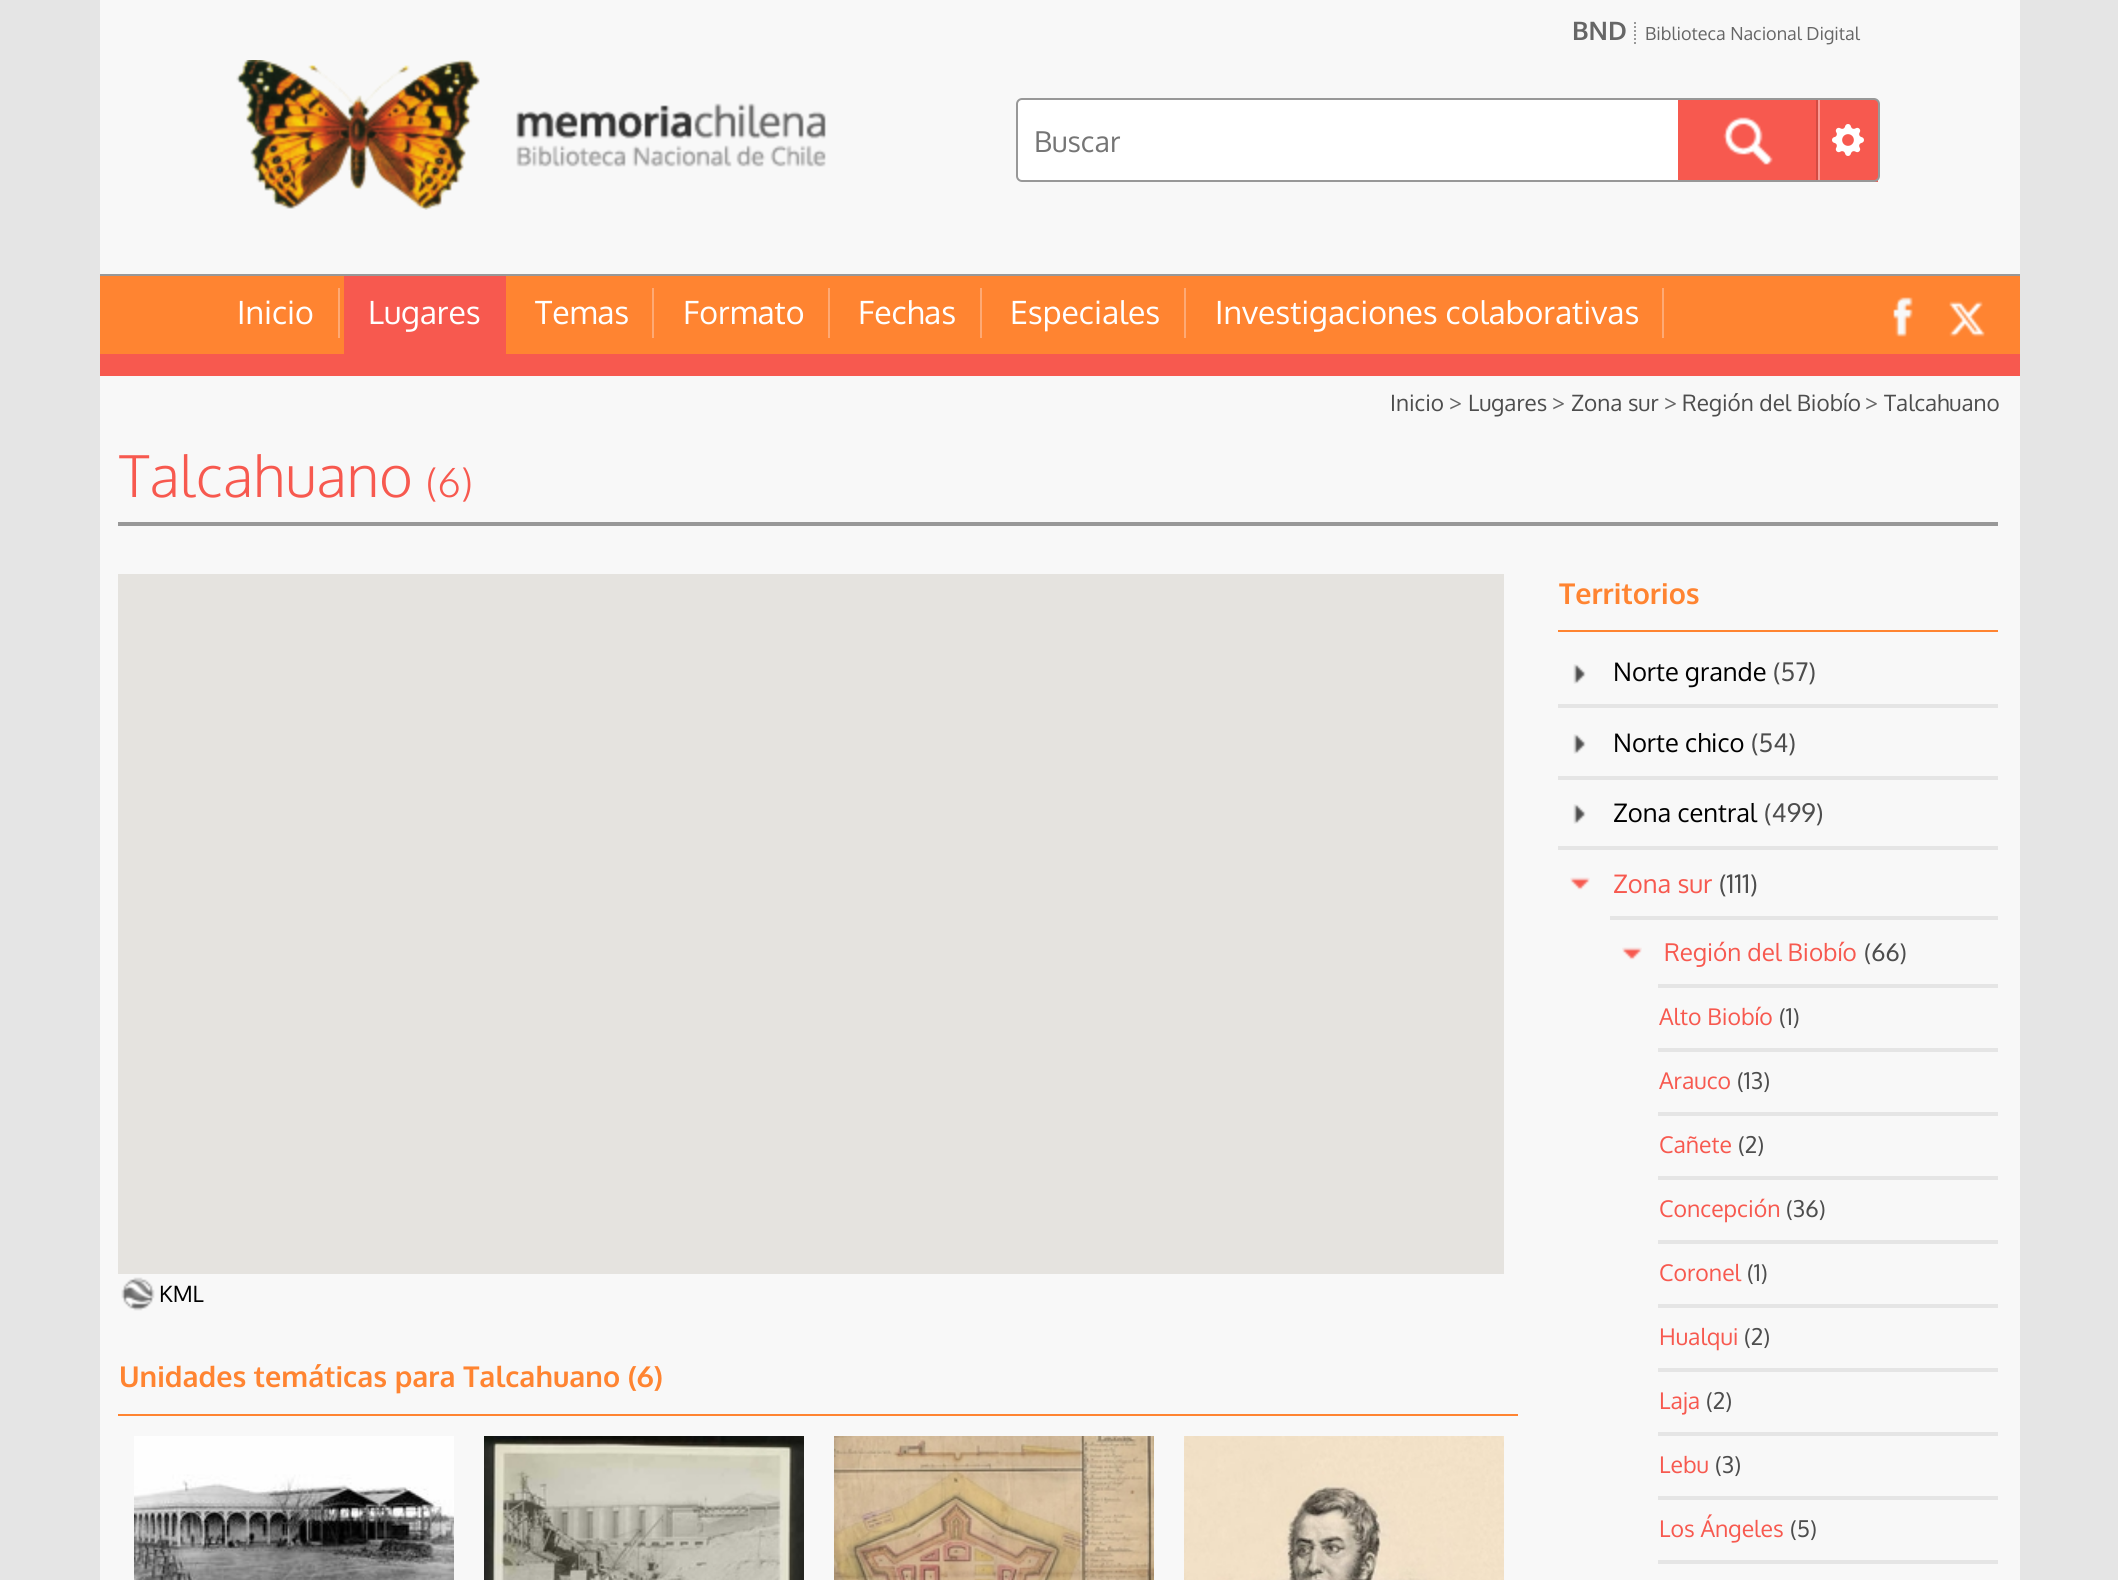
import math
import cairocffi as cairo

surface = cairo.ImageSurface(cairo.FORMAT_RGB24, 2118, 1580)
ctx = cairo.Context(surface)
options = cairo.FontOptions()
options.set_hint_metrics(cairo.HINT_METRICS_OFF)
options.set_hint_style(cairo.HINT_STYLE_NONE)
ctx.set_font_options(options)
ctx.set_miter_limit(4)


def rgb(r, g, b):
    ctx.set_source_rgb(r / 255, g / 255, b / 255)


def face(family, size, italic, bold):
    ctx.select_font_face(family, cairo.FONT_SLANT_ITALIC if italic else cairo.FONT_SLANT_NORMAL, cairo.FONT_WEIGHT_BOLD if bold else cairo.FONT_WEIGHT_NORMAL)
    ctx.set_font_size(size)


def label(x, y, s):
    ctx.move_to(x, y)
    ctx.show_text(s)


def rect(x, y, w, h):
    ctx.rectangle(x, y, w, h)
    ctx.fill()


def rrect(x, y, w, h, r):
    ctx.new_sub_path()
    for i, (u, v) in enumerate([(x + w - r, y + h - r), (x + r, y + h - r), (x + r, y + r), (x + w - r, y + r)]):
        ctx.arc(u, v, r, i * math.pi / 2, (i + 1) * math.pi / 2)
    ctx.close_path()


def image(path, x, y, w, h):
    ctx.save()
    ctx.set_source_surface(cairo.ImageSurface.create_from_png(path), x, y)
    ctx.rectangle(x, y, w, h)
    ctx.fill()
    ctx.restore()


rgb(229, 229, 229)
ctx.paint()
rgb(248, 248, 248)
rect(100, 0, 1920, 1580)
face('Oxygen', 25.5, 0, 1)
rgb(102, 102, 102)
label(1572, 40, 'BND')
ctx.new_path()
ctx.move_to(1635, 22)
ctx.line_to(1635, 44)
rgb(153, 153, 153)
ctx.set_dash([2, 2])
ctx.stroke()
face('Oxygen', 18, 0, 0)
rgb(102, 102, 102)
label(1645, 40, 'Biblioteca Nacional Digital')
image('image0.png', 236, 60, 590, 150)
rgb(255, 255, 255)
rrect(1016, 98, 864, 84, 6)
ctx.fill()
rgb(247, 89, 79)
rect(1678, 100, 200, 82)
rrect(1017, 99, 862, 82, 5)
rgb(152, 152, 152)
ctx.set_dash([])
ctx.stroke()
face('Oxygen', 28.75, 0, 0)
rgb(117, 117, 117)
label(1034, 152, 'Buscar')
image('image1.png', 1723, 117, 50, 48)
rgb(210, 76, 67)
rect(1816, 100, 2, 80)
rgb(250, 155, 149)
rect(1818, 100, 2, 80)
image('image2.png', 1832, 124, 32, 32)
rgb(255, 132, 49)
rect(100, 276, 1920, 78)
rgb(152, 152, 152)
rect(100, 274, 1920, 2)
rgb(247, 89, 79)
rect(100, 354, 1920, 22)
rgb(254, 169, 116)
rect(338, 288, 2, 50)
face('Oxygen', 32, 0, 0)
rgb(255, 255, 255)
label(237, 324, 'Inicio')
rgb(247, 89, 79)
rect(344, 276, 162, 78)
rgb(255, 255, 255)
label(368, 324, 'Lugares')
rgb(254, 169, 116)
rect(652, 288, 2, 50)
rgb(255, 255, 255)
label(535, 324, 'Temas')
rgb(254, 169, 116)
rect(828, 288, 2, 50)
rgb(255, 255, 255)
label(683, 324, 'Formato')
rgb(254, 169, 116)
rect(980, 288, 2, 50)
rgb(255, 255, 255)
label(858, 324, 'Fechas')
rgb(254, 169, 116)
rect(1184, 288, 2, 50)
rgb(255, 255, 255)
label(1010, 324, 'Especiales')
rgb(254, 169, 116)
rect(1662, 288, 2, 50)
rgb(255, 255, 255)
label(1215, 324, 'Investigaciones colaborativas')
image('image3.png', 1893, 297, 20, 40)
image('image4.png', 1949, 301, 36, 36)
face('Oxygen', 22.5, 0, 0)
rgb(77, 77, 77)
label(1390, 411, 'Inicio')
rgb(102, 102, 102)
label(1449, 411, '>')
rgb(77, 77, 77)
label(1468, 411, 'Lugares')
rgb(102, 102, 102)
label(1552, 411, '>')
rgb(77, 77, 77)
label(1571, 411, 'Zona sur')
rgb(102, 102, 102)
label(1664, 411, '>')
rgb(77, 77, 77)
label(1682, 411, 'Región del Biobío')
rgb(102, 102, 102)
label(1865, 411, '>')
rgb(77, 77, 77)
label(1884, 411, 'Talcahuano')
rgb(152, 152, 152)
rect(118, 522, 1880, 4)
face('Oxygen Light', 57.5, 0, 0)
rgb(247, 89, 79)
label(119, 497, 'Talcahuano')
face('Oxygen Light', 40, 0, 0)
label(426, 497, '(6)')
rgb(229, 227, 223)
rect(118, 574, 1386, 700)
image('image5.png', 121, 1277, 34, 34)
face('Oxygen', 22.5, 0, 0)
rgb(0, 0, 0)
label(159, 1302, 'KML')
rgb(255, 132, 49)
rect(118, 1414, 1400, 2)
face('Oxygen', 28.75, 0, 1)
label(119, 1387, 'Unidades temáticas para Talcahuano (6)')
image('image6.png', 134, 1436, 320, 144)
image('image7.png', 484, 1436, 320, 144)
image('image8.png', 834, 1436, 320, 144)
image('image9.png', 1184, 1436, 320, 144)
rect(1558, 630, 440, 2)
label(1559, 604, 'Territorios')
rgb(229, 229, 229)
rect(1558, 704, 440, 4)
image('image10.png', 1573, 664, 13, 20)
face('Oxygen', 25.5, 0, 0)
rgb(0, 0, 0)
label(1613, 681, 'Norte grande')
rgb(77, 77, 77)
label(1773, 681, '(57)')
rgb(229, 229, 229)
rect(1558, 776, 440, 4)
image('image10.png', 1573, 734, 13, 20)
rgb(0, 0, 0)
label(1613, 752, 'Norte chico')
rgb(77, 77, 77)
label(1751, 752, '(54)')
rgb(229, 229, 229)
rect(1558, 846, 440, 4)
image('image10.png', 1573, 804, 13, 20)
rgb(0, 0, 0)
label(1613, 822, 'Zona central')
rgb(77, 77, 77)
label(1764, 822, '(499)')
image('image11.png', 1570, 877, 20, 13)
rgb(247, 89, 79)
label(1613, 893, 'Zona sur')
rgb(77, 77, 77)
label(1719, 893, '(111)')
rgb(229, 229, 229)
rect(1610, 916, 388, 4)
image('image11.png', 1622, 947, 20, 13)
face('Oxygen', 24.25, 0, 0)
rgb(247, 89, 79)
label(1664, 961, 'Región del Biobío')
rgb(77, 77, 77)
label(1864, 961, '(66)')
rgb(229, 229, 229)
rect(1658, 984, 340, 4)
face('Oxygen', 23, 0, 0)
rgb(247, 89, 79)
label(1659, 1025, 'Alto Biobío')
rgb(77, 77, 77)
label(1779, 1025, '(1)')
rgb(229, 229, 229)
rect(1658, 1048, 340, 4)
rgb(247, 89, 79)
label(1659, 1089, 'Arauco')
rgb(77, 77, 77)
label(1737, 1089, '(13)')
rgb(229, 229, 229)
rect(1658, 1112, 340, 4)
rgb(247, 89, 79)
label(1659, 1153, 'Cañete')
rgb(77, 77, 77)
label(1738, 1153, '(2)')
rgb(229, 229, 229)
rect(1658, 1176, 340, 4)
rgb(247, 89, 79)
label(1659, 1217, 'Concepción')
rgb(77, 77, 77)
label(1786, 1217, '(36)')
rgb(229, 229, 229)
rect(1658, 1240, 340, 4)
rgb(247, 89, 79)
label(1659, 1281, 'Coronel')
rgb(77, 77, 77)
label(1747, 1281, '(1)')
rgb(229, 229, 229)
rect(1658, 1304, 340, 4)
rgb(247, 89, 79)
label(1659, 1345, 'Hualqui')
rgb(77, 77, 77)
label(1744, 1345, '(2)')
rgb(229, 229, 229)
rect(1658, 1368, 340, 4)
rgb(247, 89, 79)
label(1659, 1409, 'Laja')
rgb(77, 77, 77)
label(1706, 1409, '(2)')
rgb(229, 229, 229)
rect(1658, 1432, 340, 4)
rgb(247, 89, 79)
label(1659, 1473, 'Lebu')
rgb(77, 77, 77)
label(1715, 1473, '(3)')
rgb(229, 229, 229)
rect(1658, 1496, 340, 4)
rgb(247, 89, 79)
label(1659, 1537, 'Los Ángeles')
rgb(77, 77, 77)
label(1790, 1537, '(5)')
rgb(229, 229, 229)
rect(1658, 1560, 340, 4)
surface.write_to_png('render.png')
